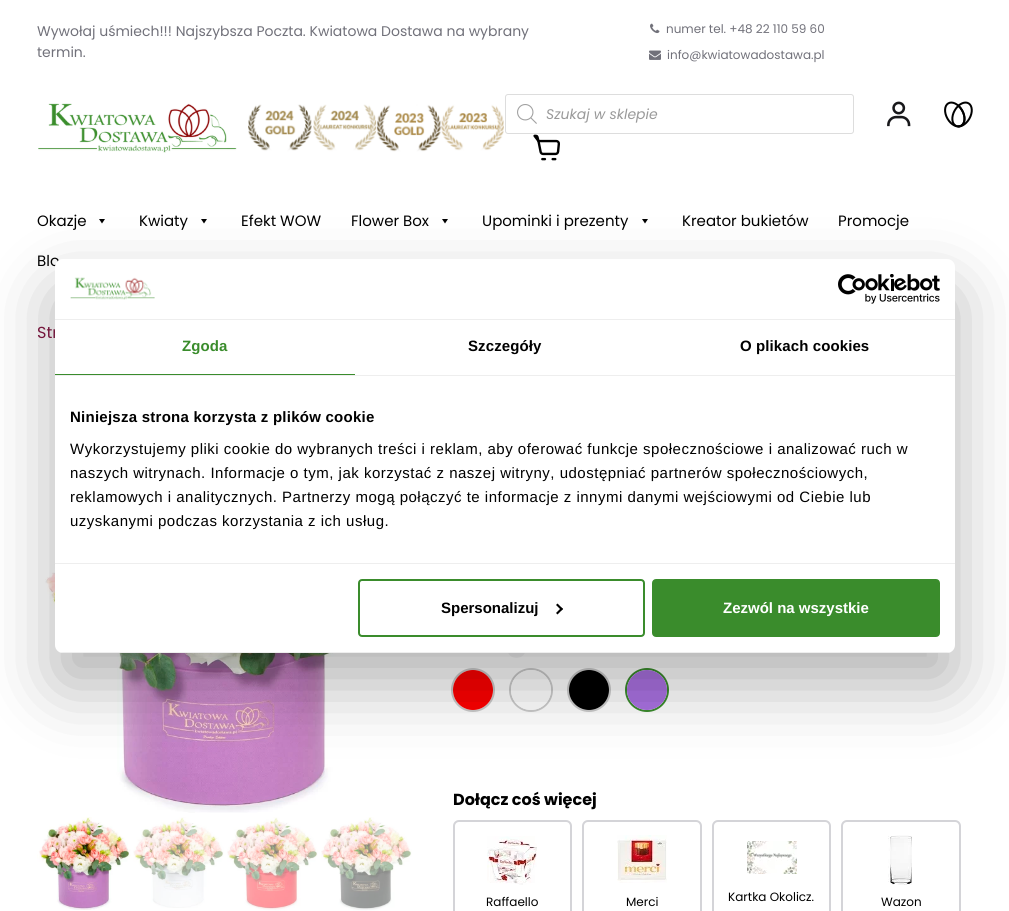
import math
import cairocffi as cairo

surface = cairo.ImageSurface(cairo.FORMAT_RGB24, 1009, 911)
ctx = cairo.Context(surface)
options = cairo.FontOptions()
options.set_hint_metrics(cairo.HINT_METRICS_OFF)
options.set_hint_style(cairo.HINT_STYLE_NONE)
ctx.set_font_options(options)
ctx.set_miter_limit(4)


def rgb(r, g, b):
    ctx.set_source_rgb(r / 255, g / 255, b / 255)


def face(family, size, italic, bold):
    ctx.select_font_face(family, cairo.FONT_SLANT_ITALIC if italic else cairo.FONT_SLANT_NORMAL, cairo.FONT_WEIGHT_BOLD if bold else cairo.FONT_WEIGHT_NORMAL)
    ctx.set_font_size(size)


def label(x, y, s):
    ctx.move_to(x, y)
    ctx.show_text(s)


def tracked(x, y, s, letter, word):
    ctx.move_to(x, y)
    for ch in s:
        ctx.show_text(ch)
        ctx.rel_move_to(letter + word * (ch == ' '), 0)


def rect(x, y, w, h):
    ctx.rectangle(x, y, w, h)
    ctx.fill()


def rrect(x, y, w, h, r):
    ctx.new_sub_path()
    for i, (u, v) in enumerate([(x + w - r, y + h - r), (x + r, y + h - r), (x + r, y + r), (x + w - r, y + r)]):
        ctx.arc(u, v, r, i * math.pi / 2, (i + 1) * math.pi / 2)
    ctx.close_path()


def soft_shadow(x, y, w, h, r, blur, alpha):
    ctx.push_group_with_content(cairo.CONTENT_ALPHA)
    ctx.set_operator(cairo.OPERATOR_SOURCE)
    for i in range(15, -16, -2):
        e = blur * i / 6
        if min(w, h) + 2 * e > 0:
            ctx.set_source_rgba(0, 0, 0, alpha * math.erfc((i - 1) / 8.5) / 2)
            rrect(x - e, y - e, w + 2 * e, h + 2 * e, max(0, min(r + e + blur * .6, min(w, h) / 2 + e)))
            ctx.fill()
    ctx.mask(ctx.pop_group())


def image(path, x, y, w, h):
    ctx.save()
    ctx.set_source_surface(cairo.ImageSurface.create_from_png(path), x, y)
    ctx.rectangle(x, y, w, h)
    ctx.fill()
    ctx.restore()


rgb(255, 255, 255)
ctx.paint()
face('Poppins', 14, 0, 0)
rgb(113, 113, 122)
label(37, 36, 'Wywołaj uśmiech!!! Najszybsza Poczta. Kwiatowa Dostawa na wybrany')
label(37, 57, 'termin.')
image('image0.png', 650, 23, 10, 11)
face('Poppins', 12, 0, 0)
label(666, 33, 'numer tel. +48 22 110 59 60')
image('image1.png', 649, 50, 12, 10)
label(667, 59, 'info@kwiatowadostawa.pl')
image('image2.png', 38, 103, 199, 50)
image('image3.png', 248, 104, 256, 48)
rrect(505.5, 94.5, 348, 39, 2.5)
rgb(221, 221, 221)
ctx.set_line_width(1)
ctx.stroke()
image('image4.png', 517, 104, 20, 20)
face('Poppins', 14, 1, 0)
rgb(153, 153, 153)
label(546, 119, 'Szukaj w sklepie')
image('image5.png', 887, 101, 24, 26)
image('image6.png', 944, 101, 29, 27)
image('image7.png', 533, 134, 27, 27)
face('Poppins', 15, 0, 0)
rgb(0, 0, 0)
label(37, 226, 'Okazje')
ctx.new_path()
ctx.move_to(105, 219)
ctx.line_to(102, 223.5)
ctx.line_to(99, 219)
ctx.close_path()
ctx.fill()
label(139, 226, 'Kwiaty')
ctx.new_path()
ctx.move_to(207, 219)
ctx.line_to(204, 223.5)
ctx.line_to(201, 219)
ctx.close_path()
ctx.fill()
label(241, 226, 'Efekt WOW')
label(351, 226, 'Flower Box')
ctx.new_path()
ctx.move_to(448, 219)
ctx.line_to(445, 223.5)
ctx.line_to(442, 219)
ctx.close_path()
ctx.fill()
label(482, 226, 'Upominki i prezenty')
ctx.new_path()
ctx.move_to(648, 219)
ctx.line_to(645, 223.5)
ctx.line_to(642, 219)
ctx.close_path()
ctx.fill()
label(682, 226, 'Kreator bukietów')
label(838, 226, 'Promocje')
label(37, 266, 'Blo')
face('Poppins', 16, 0, 0)
rgb(131, 24, 67)
label(37, 338, 'Str')
image('image10.png', 45, 441, 362, 372)
rgb(244, 244, 245)
ctx.arc(516.5, 648.5, 9.5, 0, 2 * math.pi)
ctx.fill()
ctx.arc(473, 690, 21, 0, 2 * math.pi)
rgb(204, 204, 204)
ctx.set_line_width(2)
ctx.stroke()
rgb(255, 0, 0)
ctx.arc(473, 690, 20, 0, 2 * math.pi)
ctx.fill()
ctx.arc(531, 690, 21, 0, 2 * math.pi)
rgb(204, 204, 204)
ctx.stroke()
rgb(255, 255, 255)
ctx.arc(531, 690, 20, 0, 2 * math.pi)
ctx.fill()
ctx.arc(589, 690, 21, 0, 2 * math.pi)
rgb(204, 204, 204)
ctx.stroke()
rgb(0, 0, 0)
ctx.arc(589, 690, 20, 0, 2 * math.pi)
ctx.fill()
ctx.arc(647, 690, 21, 0, 2 * math.pi)
rgb(58, 140, 44)
ctx.stroke()
rgb(170, 113, 226)
ctx.arc(647, 690, 20, 0, 2 * math.pi)
ctx.fill()
rgb(0, 0, 0)
soft_shadow(55, 291, 900, 394, 8, 34, 0.3)
rgb(255, 255, 255)
rrect(55, 259, 900, 394, 8)
ctx.fill()
rgb(238, 238, 238)
rect(55, 319, 900, 1)
image('image8.png', 70, 277, 85, 23)
image('image9.png', 838, 274, 102, 30)
rect(55, 375, 900, 1)
rgb(58, 140, 44)
rect(55, 374, 300, 1)
face('Liberation Sans', 15, 0, 1)
tracked(182, 351, 'Zgoda', 0.1, 0)
rgb(0, 0, 0)
tracked(468, 351, 'Szczegóły', 0.1, 0)
tracked(740, 351, 'O plikach cookies', 0.1, 0)
rgb(238, 238, 238)
rect(55, 563, 900, 1)
rgb(0, 0, 0)
tracked(70, 422, 'Niniejsza strona korzysta z plików cookie', 0.25, 0)
face('Liberation Sans', 15, 0, 0)
tracked(70, 454, 'Wykorzystujemy pliki cookie do wybranych treści i reklam, aby oferować funkcje społecznościowe i analizować ruch w', 0.5, 0)
tracked(70, 478, 'naszych witrynach. Informacje o tym, jak korzystać z naszej witryny, udostępniać partnerów społecznościowych,', 0.5, 0)
tracked(70, 502, 'reklamowych i analitycznych. Partnerzy mogą połączyć te informacje z innymi danymi wejściowymi od Ciebie lub', 0.5, 0)
tracked(70, 526, 'uzyskanymi podczas korzystania z ich usług.', 0.5, 0)
ctx.save()
rrect(55, 259, 900, 394, 8)
ctx.clip()
rgb(238, 238, 238)
rect(55, 652, 900, 1)
ctx.restore()
rrect(359, 580, 285, 56, 3)
rgb(58, 140, 44)
ctx.stroke()
face('Liberation Sans', 15, 0, 1)
rgb(0, 0, 0)
label(441, 613, 'Spersonalizuj')
ctx.new_path()
ctx.move_to(557.5, 603.5)
ctx.line_to(563, 609)
ctx.line_to(561.5, 610.5)
ctx.line_to(556, 605)
ctx.close_path()
ctx.fill()
ctx.new_path()
ctx.move_to(561.5, 607.5)
ctx.line_to(563, 609)
ctx.line_to(557.5, 614.5)
ctx.line_to(556, 613)
ctx.close_path()
ctx.fill()
rgb(58, 140, 44)
rrect(653, 580, 286, 56, 3)
ctx.fill_preserve()
ctx.stroke()
rgb(255, 255, 255)
label(723, 613, 'Zezwól na wszystkie')
image('image11.png', 37, 817, 94, 93)
image('image12.png', 133, 817, 91, 91)
image('image13.png', 227, 817, 91, 94)
image('image14.png', 321, 817, 91, 94)
face('Poppins', 16, 0, 1)
rgb(0, 0, 0)
label(453, 805, 'Dołącz coś więcej')
rrect(454, 821, 117, 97, 5)
rgb(212, 212, 216)
ctx.stroke()
image('image15.png', 487, 836, 50, 49)
face('Poppins', 12, 0, 0)
rgb(0, 0, 0)
label(486, 906, 'Raffaello')
rrect(583, 821, 118, 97, 5)
rgb(212, 212, 216)
ctx.stroke()
image('image16.png', 617, 835, 50, 48)
rgb(0, 0, 0)
label(626, 906, 'Merci')
rrect(713, 821, 117, 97, 5)
rgb(212, 212, 216)
ctx.stroke()
image('image17.png', 747, 841, 50, 33)
rgb(0, 0, 0)
label(728, 901, 'Kartka Okolicz.')
rrect(842, 821, 118, 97, 5)
rgb(212, 212, 216)
ctx.stroke()
image('image18.png', 888, 835, 24, 50)
rgb(0, 0, 0)
label(881, 906, 'Wazon')
surface.write_to_png('render.png')
